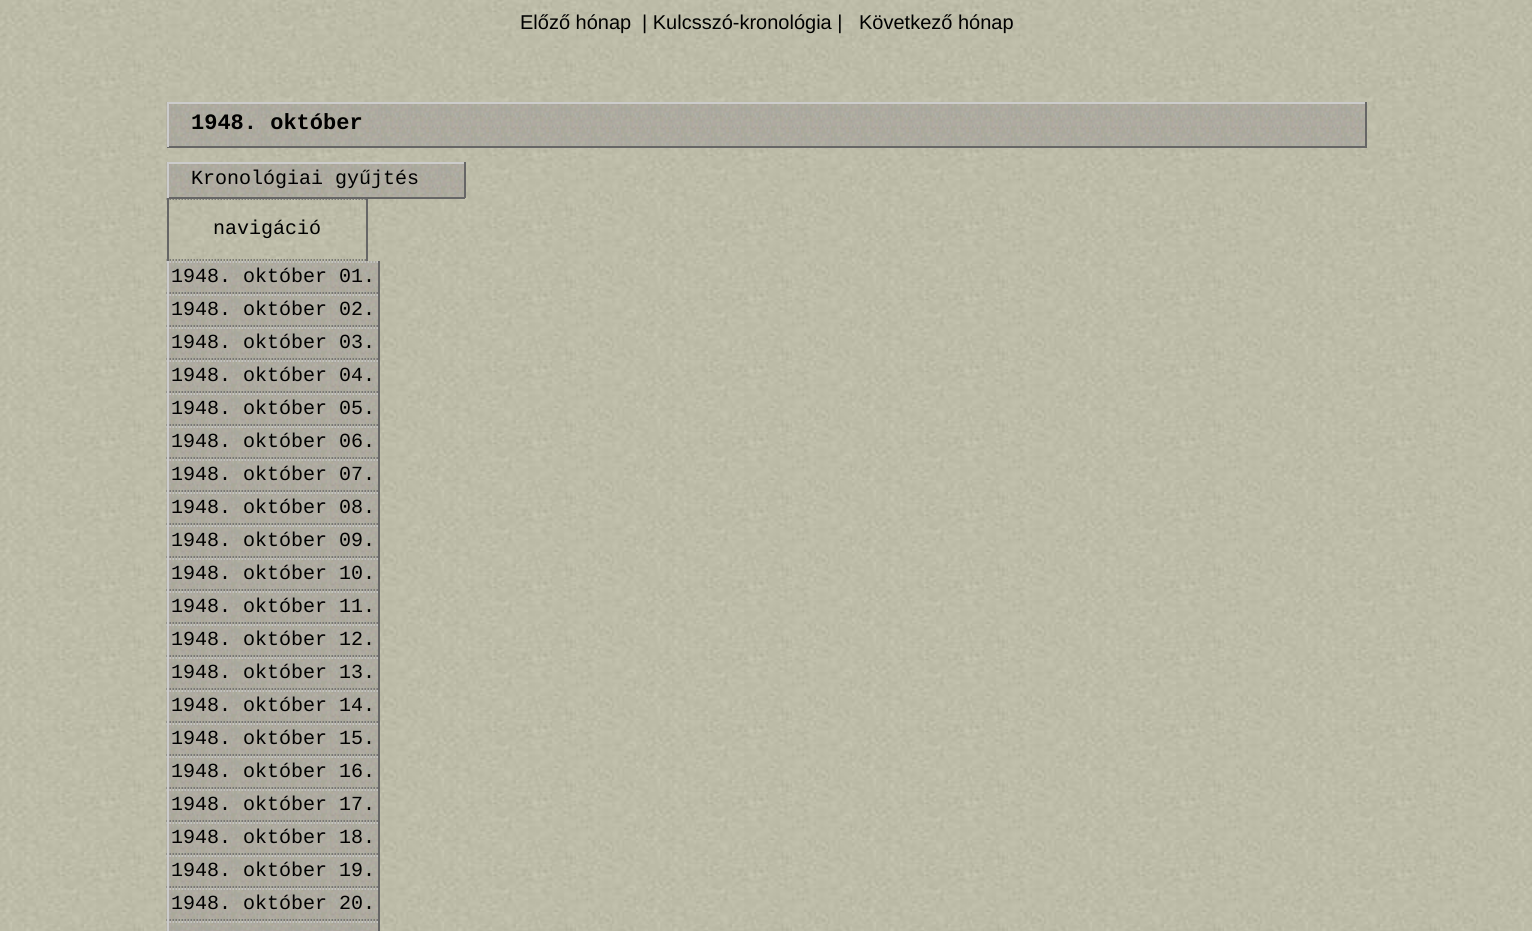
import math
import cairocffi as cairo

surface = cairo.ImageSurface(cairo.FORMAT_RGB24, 1532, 931)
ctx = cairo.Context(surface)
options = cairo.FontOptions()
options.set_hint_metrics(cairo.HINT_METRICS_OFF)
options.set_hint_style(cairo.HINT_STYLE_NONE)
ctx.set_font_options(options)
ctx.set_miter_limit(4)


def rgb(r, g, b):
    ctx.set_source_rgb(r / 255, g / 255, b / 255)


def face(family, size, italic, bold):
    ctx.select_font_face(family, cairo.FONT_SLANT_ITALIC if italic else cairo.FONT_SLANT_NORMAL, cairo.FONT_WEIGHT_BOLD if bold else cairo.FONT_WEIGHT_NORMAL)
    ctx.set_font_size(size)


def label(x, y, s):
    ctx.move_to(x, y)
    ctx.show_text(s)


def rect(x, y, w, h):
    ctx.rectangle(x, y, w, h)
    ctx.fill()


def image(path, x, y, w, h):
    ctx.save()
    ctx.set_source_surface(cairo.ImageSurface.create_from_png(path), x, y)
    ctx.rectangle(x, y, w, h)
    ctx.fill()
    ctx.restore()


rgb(255, 255, 255)
ctx.paint()
image('image0.png', 0, 0, 1532, 931)
face('Liberation Sans', 20, 0, 0)
rgb(0, 0, 0)
label(520, 29, 'Előző hónap')
label(642, 29, '| Kulcsszó-kronológia |')
label(859, 29, 'Következő hónap')
image('image1.png', 166, 102, 1199, 45)
rgb(204, 204, 204)
rect(167, 102, 1200, 2)
rgb(102, 102, 102)
rect(1365, 102, 2, 45)
rect(167, 146, 1200, 2)
rgb(204, 204, 204)
rect(167, 102, 2, 45)
face('Liberation Mono', 22, 0, 1)
rgb(0, 0, 0)
label(191, 129, '1948. október')
image('image2.png', 166, 162, 298, 36)
rgb(204, 204, 204)
rect(167, 162, 298, 2)
rgb(102, 102, 102)
rect(464, 162, 2, 36)
rect(167, 197, 298, 2)
rgb(204, 204, 204)
rect(167, 162, 2, 36)
face('Liberation Mono', 20, 0, 0)
rgb(0, 0, 0)
label(191, 184, 'Kronológiai gyűjtés')
ctx.new_path()
ctx.move_to(166.5, 199)
ctx.line_to(367.5, 199)
rgb(102, 102, 102)
ctx.set_line_width(1.5)
ctx.set_dash([1.5, 1.5])
ctx.stroke()
rect(366, 198, 2, 63)
ctx.new_path()
ctx.move_to(166.5, 260)
ctx.line_to(367.5, 260)
ctx.stroke()
rect(167, 198, 2, 63)
rgb(0, 0, 0)
label(213, 234, 'navigáció')
image('image3.png', 166, 261, 212, 33)
ctx.new_path()
ctx.move_to(166.5, 262)
ctx.line_to(379.5, 262)
rgb(204, 204, 204)
ctx.stroke()
rgb(102, 102, 102)
rect(378, 261, 2, 670)
ctx.new_path()
ctx.move_to(166.5, 293)
ctx.line_to(379.5, 293)
ctx.stroke()
rgb(204, 204, 204)
rect(167, 261, 2, 33)
rgb(0, 0, 0)
label(171, 282, '1948. október 01.')
image('image4.png', 166, 294, 212, 33)
ctx.new_path()
ctx.move_to(166.5, 295)
ctx.line_to(379.5, 295)
rgb(204, 204, 204)
ctx.stroke()
ctx.new_path()
ctx.move_to(166.5, 326)
ctx.line_to(379.5, 326)
rgb(102, 102, 102)
ctx.stroke()
rgb(204, 204, 204)
rect(167, 294, 2, 33)
rgb(0, 0, 0)
label(171, 315, '1948. október 02.')
image('image5.png', 166, 327, 212, 33)
ctx.new_path()
ctx.move_to(166.5, 328)
ctx.line_to(379.5, 328)
rgb(204, 204, 204)
ctx.stroke()
ctx.new_path()
ctx.move_to(166.5, 359)
ctx.line_to(379.5, 359)
rgb(102, 102, 102)
ctx.stroke()
rgb(204, 204, 204)
rect(167, 327, 2, 33)
rgb(0, 0, 0)
label(171, 348, '1948. október 03.')
image('image6.png', 166, 360, 212, 33)
ctx.new_path()
ctx.move_to(166.5, 361)
ctx.line_to(379.5, 361)
rgb(204, 204, 204)
ctx.stroke()
ctx.new_path()
ctx.move_to(166.5, 392)
ctx.line_to(379.5, 392)
rgb(102, 102, 102)
ctx.stroke()
rgb(204, 204, 204)
rect(167, 360, 2, 33)
rgb(0, 0, 0)
label(171, 381, '1948. október 04.')
image('image7.png', 166, 393, 212, 33)
ctx.new_path()
ctx.move_to(166.5, 394)
ctx.line_to(379.5, 394)
rgb(204, 204, 204)
ctx.stroke()
ctx.new_path()
ctx.move_to(166.5, 425)
ctx.line_to(379.5, 425)
rgb(102, 102, 102)
ctx.stroke()
rgb(204, 204, 204)
rect(167, 393, 2, 33)
rgb(0, 0, 0)
label(171, 414, '1948. október 05.')
image('image8.png', 166, 426, 212, 33)
ctx.new_path()
ctx.move_to(166.5, 427)
ctx.line_to(379.5, 427)
rgb(204, 204, 204)
ctx.stroke()
ctx.new_path()
ctx.move_to(166.5, 458)
ctx.line_to(379.5, 458)
rgb(102, 102, 102)
ctx.stroke()
rgb(204, 204, 204)
rect(167, 426, 2, 33)
rgb(0, 0, 0)
label(171, 447, '1948. október 06.')
image('image9.png', 166, 459, 212, 33)
ctx.new_path()
ctx.move_to(166.5, 460)
ctx.line_to(379.5, 460)
rgb(204, 204, 204)
ctx.stroke()
ctx.new_path()
ctx.move_to(166.5, 491)
ctx.line_to(379.5, 491)
rgb(102, 102, 102)
ctx.stroke()
rgb(204, 204, 204)
rect(167, 459, 2, 33)
rgb(0, 0, 0)
label(171, 480, '1948. október 07.')
image('image10.png', 166, 492, 212, 33)
ctx.new_path()
ctx.move_to(166.5, 493)
ctx.line_to(379.5, 493)
rgb(204, 204, 204)
ctx.stroke()
ctx.new_path()
ctx.move_to(166.5, 524)
ctx.line_to(379.5, 524)
rgb(102, 102, 102)
ctx.stroke()
rgb(204, 204, 204)
rect(167, 492, 2, 33)
rgb(0, 0, 0)
label(171, 513, '1948. október 08.')
image('image11.png', 166, 525, 212, 33)
ctx.new_path()
ctx.move_to(166.5, 526)
ctx.line_to(379.5, 526)
rgb(204, 204, 204)
ctx.stroke()
ctx.new_path()
ctx.move_to(166.5, 557)
ctx.line_to(379.5, 557)
rgb(102, 102, 102)
ctx.stroke()
rgb(204, 204, 204)
rect(167, 525, 2, 33)
rgb(0, 0, 0)
label(171, 546, '1948. október 09.')
image('image12.png', 166, 558, 212, 33)
ctx.new_path()
ctx.move_to(166.5, 559)
ctx.line_to(379.5, 559)
rgb(204, 204, 204)
ctx.stroke()
ctx.new_path()
ctx.move_to(166.5, 590)
ctx.line_to(379.5, 590)
rgb(102, 102, 102)
ctx.stroke()
rgb(204, 204, 204)
rect(167, 558, 2, 33)
rgb(0, 0, 0)
label(171, 579, '1948. október 10.')
image('image13.png', 166, 591, 212, 33)
ctx.new_path()
ctx.move_to(166.5, 592)
ctx.line_to(379.5, 592)
rgb(204, 204, 204)
ctx.stroke()
ctx.new_path()
ctx.move_to(166.5, 623)
ctx.line_to(379.5, 623)
rgb(102, 102, 102)
ctx.stroke()
rgb(204, 204, 204)
rect(167, 591, 2, 33)
rgb(0, 0, 0)
label(171, 612, '1948. október 11.')
image('image14.png', 166, 624, 212, 33)
ctx.new_path()
ctx.move_to(166.5, 625)
ctx.line_to(379.5, 625)
rgb(204, 204, 204)
ctx.stroke()
ctx.new_path()
ctx.move_to(166.5, 656)
ctx.line_to(379.5, 656)
rgb(102, 102, 102)
ctx.stroke()
rgb(204, 204, 204)
rect(167, 624, 2, 33)
rgb(0, 0, 0)
label(171, 645, '1948. október 12.')
image('image15.png', 166, 657, 212, 33)
ctx.new_path()
ctx.move_to(166.5, 658)
ctx.line_to(379.5, 658)
rgb(204, 204, 204)
ctx.stroke()
ctx.new_path()
ctx.move_to(166.5, 689)
ctx.line_to(379.5, 689)
rgb(102, 102, 102)
ctx.stroke()
rgb(204, 204, 204)
rect(167, 657, 2, 33)
rgb(0, 0, 0)
label(171, 678, '1948. október 13.')
image('image16.png', 166, 690, 212, 33)
ctx.new_path()
ctx.move_to(166.5, 691)
ctx.line_to(379.5, 691)
rgb(204, 204, 204)
ctx.stroke()
ctx.new_path()
ctx.move_to(166.5, 722)
ctx.line_to(379.5, 722)
rgb(102, 102, 102)
ctx.stroke()
rgb(204, 204, 204)
rect(167, 690, 2, 33)
rgb(0, 0, 0)
label(171, 711, '1948. október 14.')
image('image17.png', 166, 723, 212, 33)
ctx.new_path()
ctx.move_to(166.5, 724)
ctx.line_to(379.5, 724)
rgb(204, 204, 204)
ctx.stroke()
ctx.new_path()
ctx.move_to(166.5, 755)
ctx.line_to(379.5, 755)
rgb(102, 102, 102)
ctx.stroke()
rgb(204, 204, 204)
rect(167, 723, 2, 33)
rgb(0, 0, 0)
label(171, 744, '1948. október 15.')
image('image18.png', 166, 756, 212, 33)
ctx.new_path()
ctx.move_to(166.5, 757)
ctx.line_to(379.5, 757)
rgb(204, 204, 204)
ctx.stroke()
ctx.new_path()
ctx.move_to(166.5, 788)
ctx.line_to(379.5, 788)
rgb(102, 102, 102)
ctx.stroke()
rgb(204, 204, 204)
rect(167, 756, 2, 33)
rgb(0, 0, 0)
label(171, 777, '1948. október 16.')
image('image19.png', 166, 789, 212, 33)
ctx.new_path()
ctx.move_to(166.5, 790)
ctx.line_to(379.5, 790)
rgb(204, 204, 204)
ctx.stroke()
ctx.new_path()
ctx.move_to(166.5, 821)
ctx.line_to(379.5, 821)
rgb(102, 102, 102)
ctx.stroke()
rgb(204, 204, 204)
rect(167, 789, 2, 33)
rgb(0, 0, 0)
label(171, 810, '1948. október 17.')
image('image20.png', 166, 822, 212, 33)
ctx.new_path()
ctx.move_to(166.5, 823)
ctx.line_to(379.5, 823)
rgb(204, 204, 204)
ctx.stroke()
ctx.new_path()
ctx.move_to(166.5, 854)
ctx.line_to(379.5, 854)
rgb(102, 102, 102)
ctx.stroke()
rgb(204, 204, 204)
rect(167, 822, 2, 33)
rgb(0, 0, 0)
label(171, 843, '1948. október 18.')
image('image21.png', 166, 855, 212, 33)
ctx.new_path()
ctx.move_to(166.5, 856)
ctx.line_to(379.5, 856)
rgb(204, 204, 204)
ctx.stroke()
ctx.new_path()
ctx.move_to(166.5, 887)
ctx.line_to(379.5, 887)
rgb(102, 102, 102)
ctx.stroke()
rgb(204, 204, 204)
rect(167, 855, 2, 33)
rgb(0, 0, 0)
label(171, 876, '1948. október 19.')
image('image22.png', 166, 888, 212, 33)
ctx.new_path()
ctx.move_to(166.5, 889)
ctx.line_to(379.5, 889)
rgb(204, 204, 204)
ctx.stroke()
ctx.new_path()
ctx.move_to(166.5, 920)
ctx.line_to(379.5, 920)
rgb(102, 102, 102)
ctx.stroke()
rgb(204, 204, 204)
rect(167, 888, 2, 33)
rgb(0, 0, 0)
label(171, 909, '1948. október 20.')
image('image23.png', 166, 921, 212, 10)
ctx.new_path()
ctx.move_to(166.5, 922)
ctx.line_to(379.5, 922)
rgb(204, 204, 204)
ctx.stroke()
rect(167, 921, 2, 10)
surface.write_to_png('render.png')
